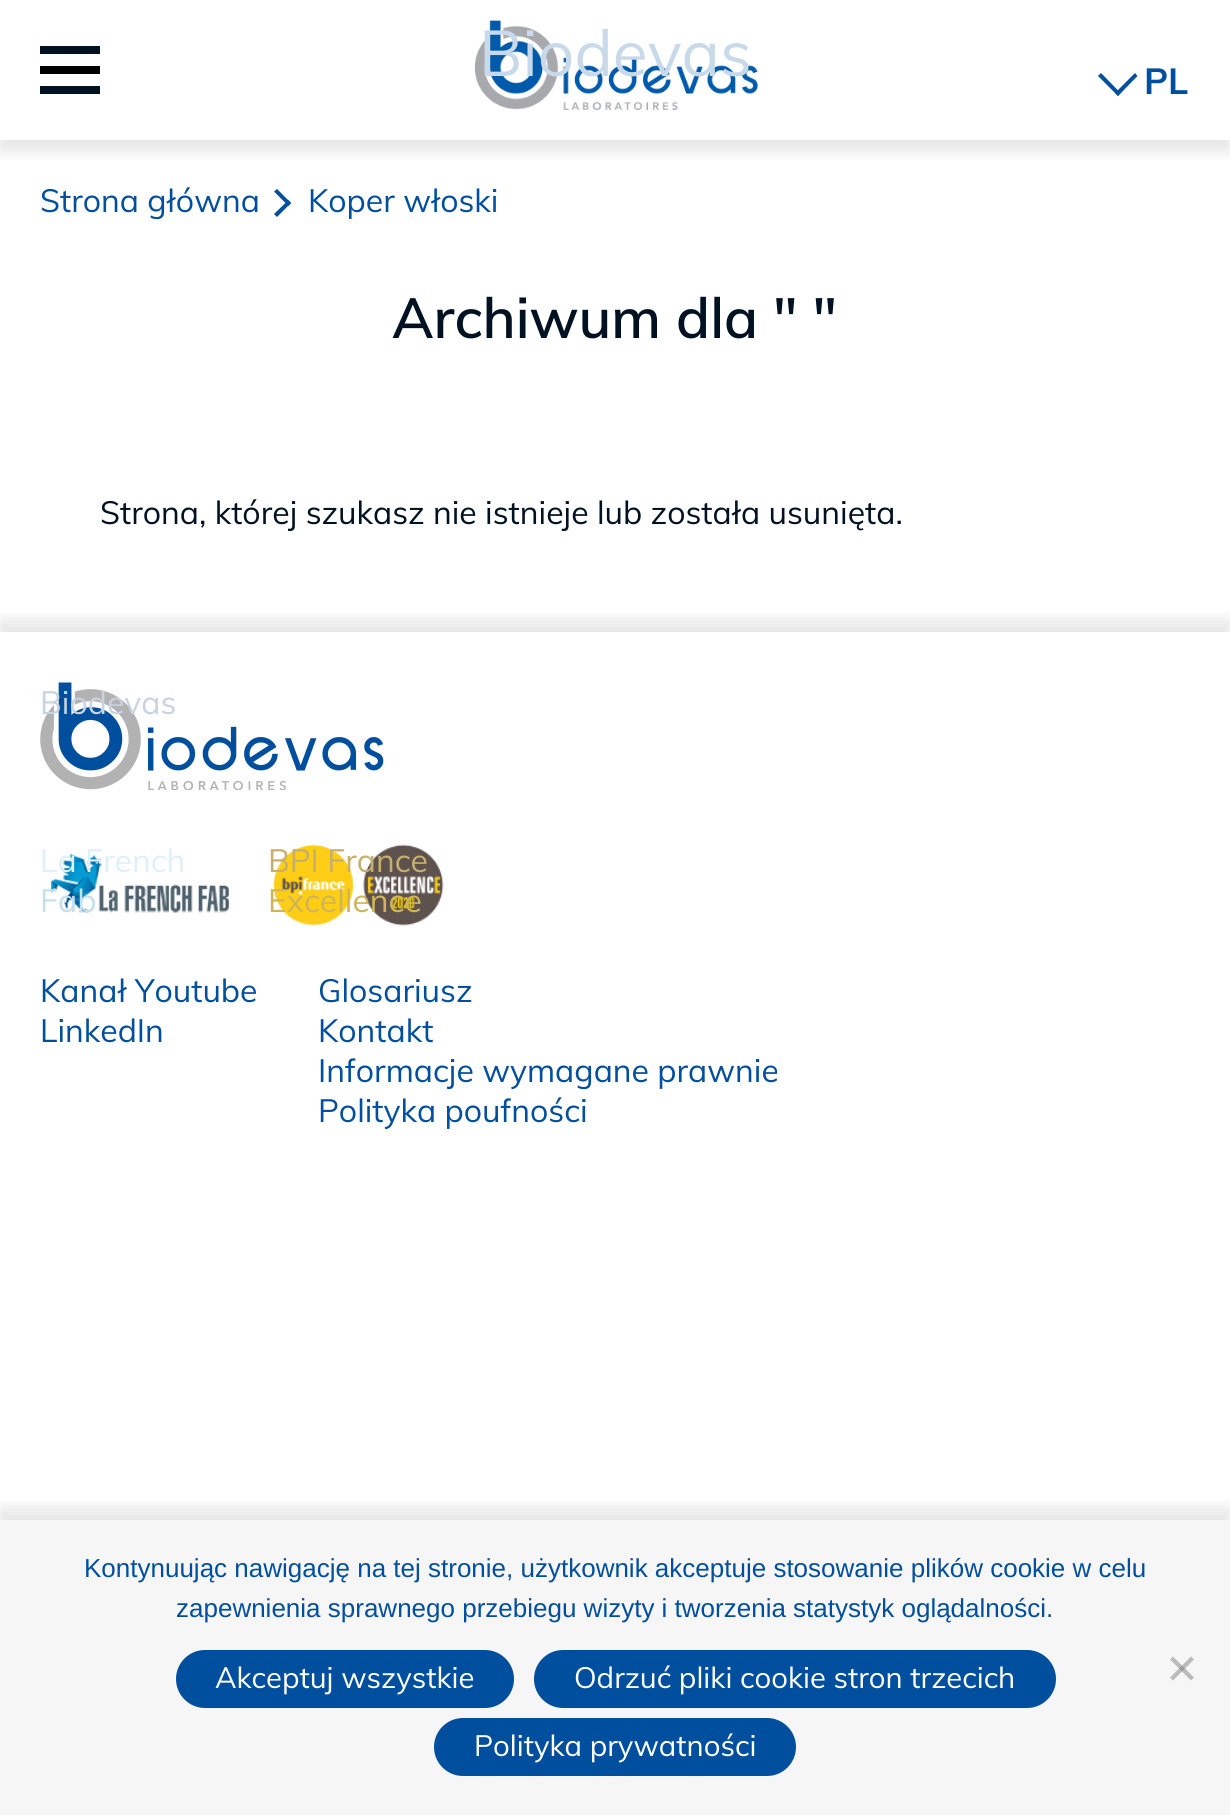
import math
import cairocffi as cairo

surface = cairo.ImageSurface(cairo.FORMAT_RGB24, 1230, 1815)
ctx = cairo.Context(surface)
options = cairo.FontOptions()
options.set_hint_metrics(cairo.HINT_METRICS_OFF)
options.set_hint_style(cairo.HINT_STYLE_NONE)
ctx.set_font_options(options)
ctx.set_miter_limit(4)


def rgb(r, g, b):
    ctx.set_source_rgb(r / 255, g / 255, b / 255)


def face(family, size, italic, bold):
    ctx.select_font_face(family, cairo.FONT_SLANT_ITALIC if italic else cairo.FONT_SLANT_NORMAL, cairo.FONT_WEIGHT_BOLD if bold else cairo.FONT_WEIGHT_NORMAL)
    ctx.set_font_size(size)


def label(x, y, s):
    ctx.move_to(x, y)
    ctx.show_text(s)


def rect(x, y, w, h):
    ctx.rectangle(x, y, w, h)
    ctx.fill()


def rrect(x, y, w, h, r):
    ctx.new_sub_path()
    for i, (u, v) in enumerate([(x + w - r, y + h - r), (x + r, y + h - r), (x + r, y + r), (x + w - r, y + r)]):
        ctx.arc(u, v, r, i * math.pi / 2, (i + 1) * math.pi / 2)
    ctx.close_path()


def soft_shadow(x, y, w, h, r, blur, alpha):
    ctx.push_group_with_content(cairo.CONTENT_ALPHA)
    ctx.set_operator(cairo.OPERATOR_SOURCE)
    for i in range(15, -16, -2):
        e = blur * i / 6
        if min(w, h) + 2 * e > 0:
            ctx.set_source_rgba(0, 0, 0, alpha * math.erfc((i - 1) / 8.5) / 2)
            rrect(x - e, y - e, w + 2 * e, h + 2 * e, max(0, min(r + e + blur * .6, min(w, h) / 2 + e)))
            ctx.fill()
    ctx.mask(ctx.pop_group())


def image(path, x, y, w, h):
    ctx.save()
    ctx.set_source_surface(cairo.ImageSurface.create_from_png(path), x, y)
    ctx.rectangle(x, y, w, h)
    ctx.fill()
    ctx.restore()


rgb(255, 255, 255)
ctx.paint()
rgb(247, 246, 246)
rect(0, 1520, 1230, 295)
ctx.save()
ctx.rectangle(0, 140, 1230, 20)
ctx.clip()
rgb(0, 0, 0)
soft_shadow(0, 10, 1230, 140, 0, 10, 0.12)
ctx.restore()
rgb(0, 0, 0)
rect(40, 66, 60, 8)
rgb(0, 17, 34)
rect(40, 46, 60, 8)
rect(40, 86, 60, 8)
image('image0.png', 474, 20, 284, 90)
face('Muli', 64, 0, 0)
rgb(200, 217, 233)
label(479, 76, 'Biodevas')
rgb(0, 79, 159)
ctx.new_path()
ctx.move_to(1135, 73)
ctx.line_to(1137.5, 76)
ctx.line_to(1118, 96)
ctx.line_to(1115, 93)
ctx.close_path()
ctx.fill()
ctx.new_path()
ctx.move_to(1101, 73)
ctx.line_to(1120.5, 93)
ctx.line_to(1118, 96)
ctx.line_to(1098, 76)
ctx.close_path()
ctx.fill()
face('Muli', 36, 0, 1)
label(1144, 94, 'PL')
face('Muli', 32, 0, 0)
label(40, 212, 'Strona główna')
ctx.new_path()
ctx.move_to(277, 189)
ctx.line_to(291, 203)
ctx.line_to(288.5, 206)
ctx.line_to(274, 191.5)
ctx.close_path()
ctx.fill()
ctx.new_path()
ctx.move_to(288.5, 200)
ctx.line_to(291, 203)
ctx.line_to(277, 217)
ctx.line_to(274, 214)
ctx.close_path()
ctx.fill()
label(308, 212, 'Koper włoski')
face('Muli SemiBold', 56, 0, 0)
rgb(0, 17, 34)
label(392, 338, 'Archiwum dla " "')
face('Muli', 32, 0, 0)
label(100, 524, 'Strona, której szukasz nie istnieje lub została usunięta.')
ctx.save()
ctx.rectangle(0, 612, 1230, 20)
ctx.clip()
rgb(0, 0, 0)
soft_shadow(0, 622, 1230, 638, 0, 10, 0.12)
ctx.restore()
image('image1.png', 40, 682, 344, 108)
rgb(199, 211, 224)
label(40, 714, 'Biodevas')
image('image2.png', 51, 853, 178, 60)
rgb(223, 240, 247)
label(40, 872, 'La French')
rgb(198, 223, 236)
label(40, 912, 'Fab')
image('image3.png', 273, 844, 171, 82)
rgb(197, 175, 110)
label(268, 872, 'BPI France')
rgb(208, 181, 88)
label(268, 912, 'Excellence')
rgb(0, 79, 159)
label(40, 1002, 'Kanał Youtube')
label(40, 1042, 'LinkedIn')
label(318, 1002, 'Glosariusz')
label(318, 1042, 'Kontakt')
label(318, 1082, 'Informacje wymagane prawnie')
label(318, 1122, 'Polityka poufności')
ctx.save()
ctx.rectangle(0, 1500, 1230, 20)
ctx.clip()
rgb(0, 0, 0)
soft_shadow(0, 1510, 1230, 296, 0, 10, 0.12)
ctx.restore()
face('Liberation Sans', 26, 0, 0)
label(84, 1577, 'Kontynuując nawigację na tej stronie, użytkownik akceptuje stosowanie plików cookie w celu')
label(176, 1617, 'zapewnienia sprawnego przebiegu wizyty i tworzenia statystyk oglądalności.')
rrect(176, 1650, 338, 58, 29)
ctx.fill()
face('Muli', 29.25, 0, 0)
rgb(255, 255, 255)
label(215, 1688, 'Akceptuj wszystkie')
rgb(0, 79, 159)
rrect(534, 1650, 522, 58, 29)
ctx.fill()
rgb(255, 255, 255)
label(574, 1688, 'Odrzuć pliki cookie stron trzecich')
rgb(0, 79, 159)
rrect(434, 1718, 362, 58, 29)
ctx.fill()
rgb(255, 255, 255)
label(474, 1756, 'Polityka prywatności')
ctx.set_source_rgba(0.502, 0.502, 0.502, 0.5)
ctx.new_path()
ctx.move_to(1191, 1656.5)
ctx.line_to(1194, 1659.5)
ctx.line_to(1173, 1680.5)
ctx.line_to(1170, 1677.5)
ctx.close_path()
ctx.fill()
ctx.new_path()
ctx.move_to(1170, 1659.5)
ctx.line_to(1173, 1656.5)
ctx.line_to(1194, 1677.5)
ctx.line_to(1191, 1680.5)
ctx.close_path()
ctx.fill()
surface.write_to_png('render.png')
